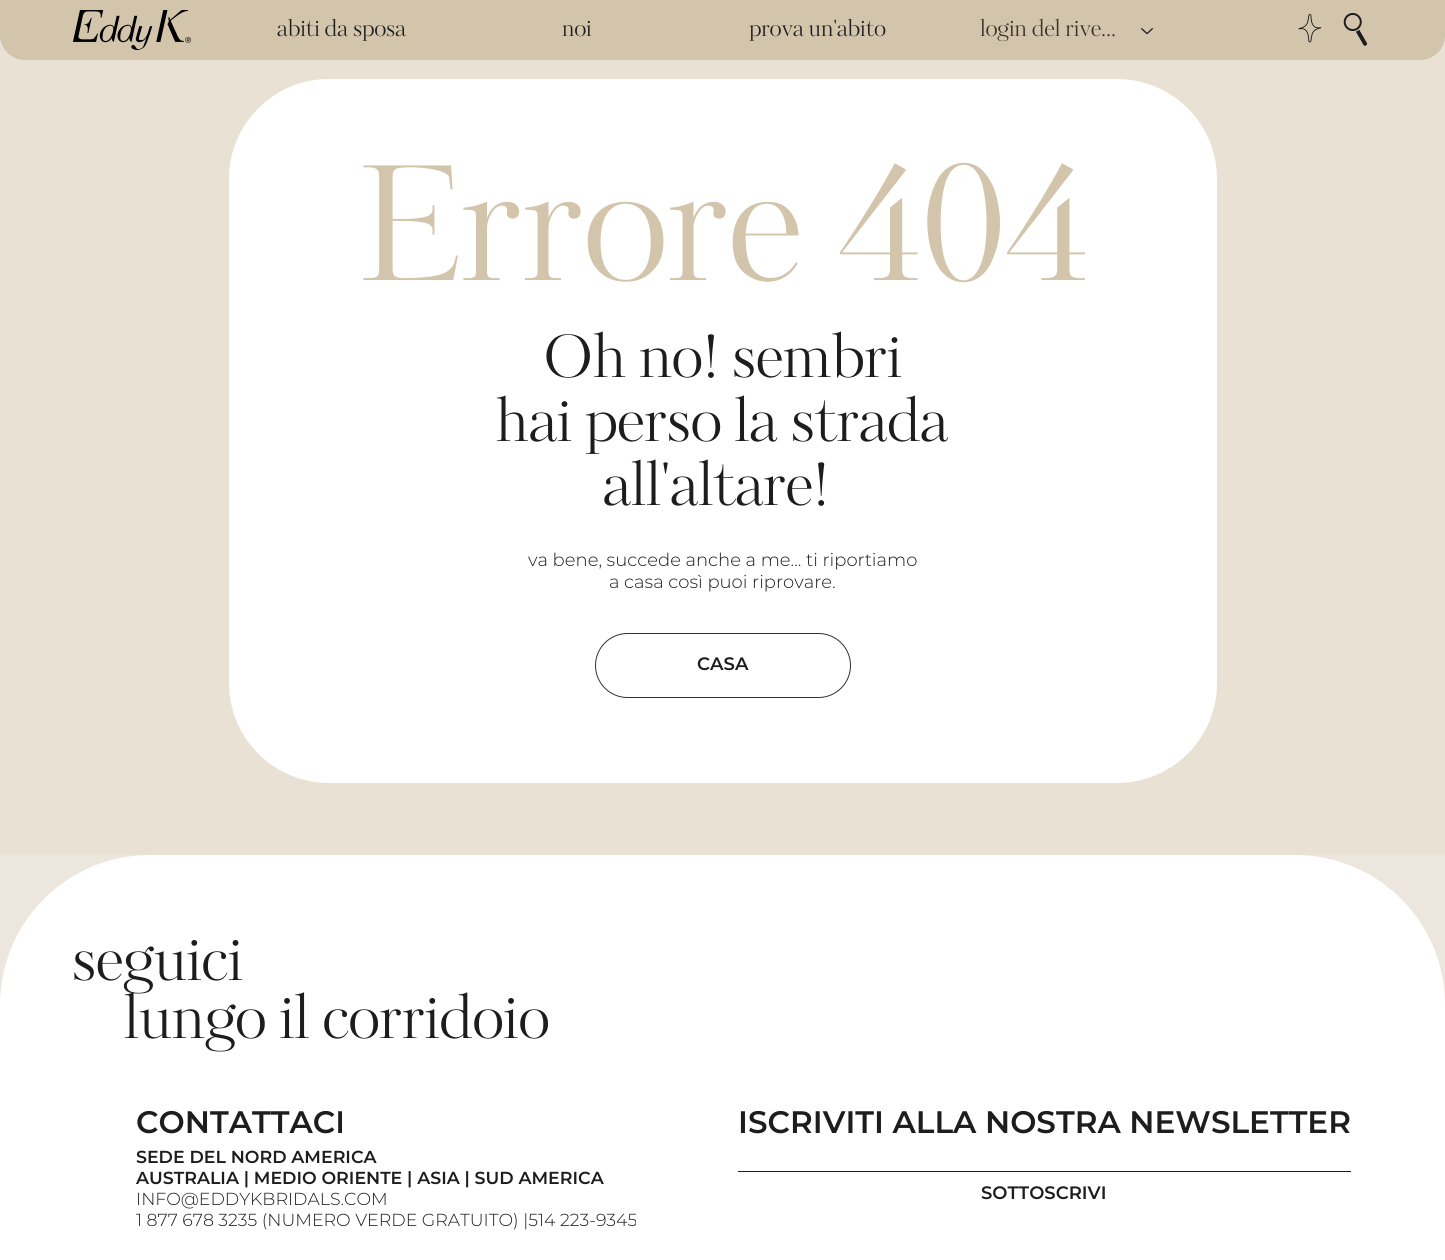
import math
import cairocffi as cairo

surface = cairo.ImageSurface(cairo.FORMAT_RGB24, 1445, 1260)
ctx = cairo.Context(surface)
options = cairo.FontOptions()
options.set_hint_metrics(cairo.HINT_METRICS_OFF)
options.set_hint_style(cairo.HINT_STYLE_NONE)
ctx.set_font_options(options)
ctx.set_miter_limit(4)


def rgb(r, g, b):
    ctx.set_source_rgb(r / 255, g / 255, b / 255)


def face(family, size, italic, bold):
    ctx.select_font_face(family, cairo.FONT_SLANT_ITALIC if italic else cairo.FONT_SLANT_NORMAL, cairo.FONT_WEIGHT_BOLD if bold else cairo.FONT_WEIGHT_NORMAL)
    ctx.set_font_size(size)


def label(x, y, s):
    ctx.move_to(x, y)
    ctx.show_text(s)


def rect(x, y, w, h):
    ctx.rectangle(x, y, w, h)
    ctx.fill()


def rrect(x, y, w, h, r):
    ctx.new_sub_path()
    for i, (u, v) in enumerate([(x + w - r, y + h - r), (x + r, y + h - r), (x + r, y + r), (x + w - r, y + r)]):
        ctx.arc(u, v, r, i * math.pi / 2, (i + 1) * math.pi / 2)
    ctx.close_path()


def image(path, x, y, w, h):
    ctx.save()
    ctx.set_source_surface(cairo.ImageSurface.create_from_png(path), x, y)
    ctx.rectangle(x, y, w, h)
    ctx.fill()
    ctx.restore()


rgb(233, 225, 211)
ctx.paint()
rgb(211, 197, 171)
ctx.new_path()
ctx.move_to(0, 0)
ctx.line_to(1445, 0)
ctx.line_to(1445, 35)
ctx.curve_to(1445, 49, 1434, 60, 1420, 60)
ctx.line_to(25, 60)
ctx.curve_to(11, 60, 0, 49, 0, 35)
ctx.close_path()
ctx.fill()
image('image0.png', 72, 10, 120, 40)
face('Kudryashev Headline', 22, 0, 0)
rgb(29, 29, 29)
label(277, 36, 'abiti da sposa')
label(562, 36, 'noi')
label(749, 36, 'prova un\'abito')
rgb(53, 49, 43)
label(980, 36, 'login del rive…')
image('image1.png', 1141, 28, 12, 6)
image('image2.png', 1298, 14, 24, 29)
image('image3.png', 1343, 13, 25, 33)
rgb(255, 255, 255)
rrect(229, 79, 988, 704, 100)
ctx.fill()
face('Kudryashev Headline', 158.5, 0, 0)
rgb(211, 197, 171)
label(356, 280, 'Errore 404')
face('Kudryashev Headline', 58, 0, 0)
rgb(29, 29, 29)
label(543, 377, 'Oh no! sembri')
label(496, 441, 'hai perso la strada')
label(603, 505, 'all\'altare!')
face('Montserrat Light', 18, 0, 0)
label(528, 566, 'va bene, succede anche a me... ti riportiamo')
label(609, 588, 'a casa così puoi riprovare.')
rrect(595.5, 633.5, 255, 64, 32)
rgb(53, 49, 43)
ctx.set_line_width(1)
ctx.stroke()
face('Montserrat SemiBold', 18, 0, 0)
rgb(29, 29, 29)
label(697, 670, 'CASA')
rgb(236, 230, 223)
rect(0, 855, 1445, 150)
rgb(255, 255, 255)
ctx.new_path()
ctx.move_to(150, 855)
ctx.line_to(1295, 855)
ctx.curve_to(1378, 855, 1445, 922, 1445, 1005)
ctx.line_to(1445, 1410)
ctx.line_to(0, 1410)
ctx.line_to(0, 1005)
ctx.curve_to(0, 922, 67, 855, 150, 855)
ctx.close_path()
ctx.fill()
face('Kudryashev Headline', 58.25, 0, 0)
rgb(29, 29, 29)
label(72, 980, 'seguici')
label(124, 1038, 'lungo il corridoio')
face('Montserrat SemiBold', 31.1, 0, 0)
label(136, 1133, 'CONTATTACI')
face('Montserrat SemiBold', 17.4, 0, 0)
label(136, 1163, 'SEDE DEL NORD AMERICA')
label(136, 1184, 'AUSTRALIA | MEDIO ORIENTE | ASIA | SUD AMERICA')
face('Montserrat Light', 17.4, 0, 0)
label(136, 1205, 'INFO@EDDYKBRIDALS.COM')
label(136, 1226, '1 877 678 3235 (NUMERO VERDE GRATUITO) |514 223-9345')
face('Montserrat SemiBold', 31.1, 0, 0)
label(738, 1133, 'ISCRIVITI ALLA NOSTRA NEWSLETTER')
rect(738, 1171, 613, 1)
face('Montserrat SemiBold', 18, 0, 0)
label(981, 1199, 'SOTTOSCRIVI')
surface.write_to_png('render.png')
